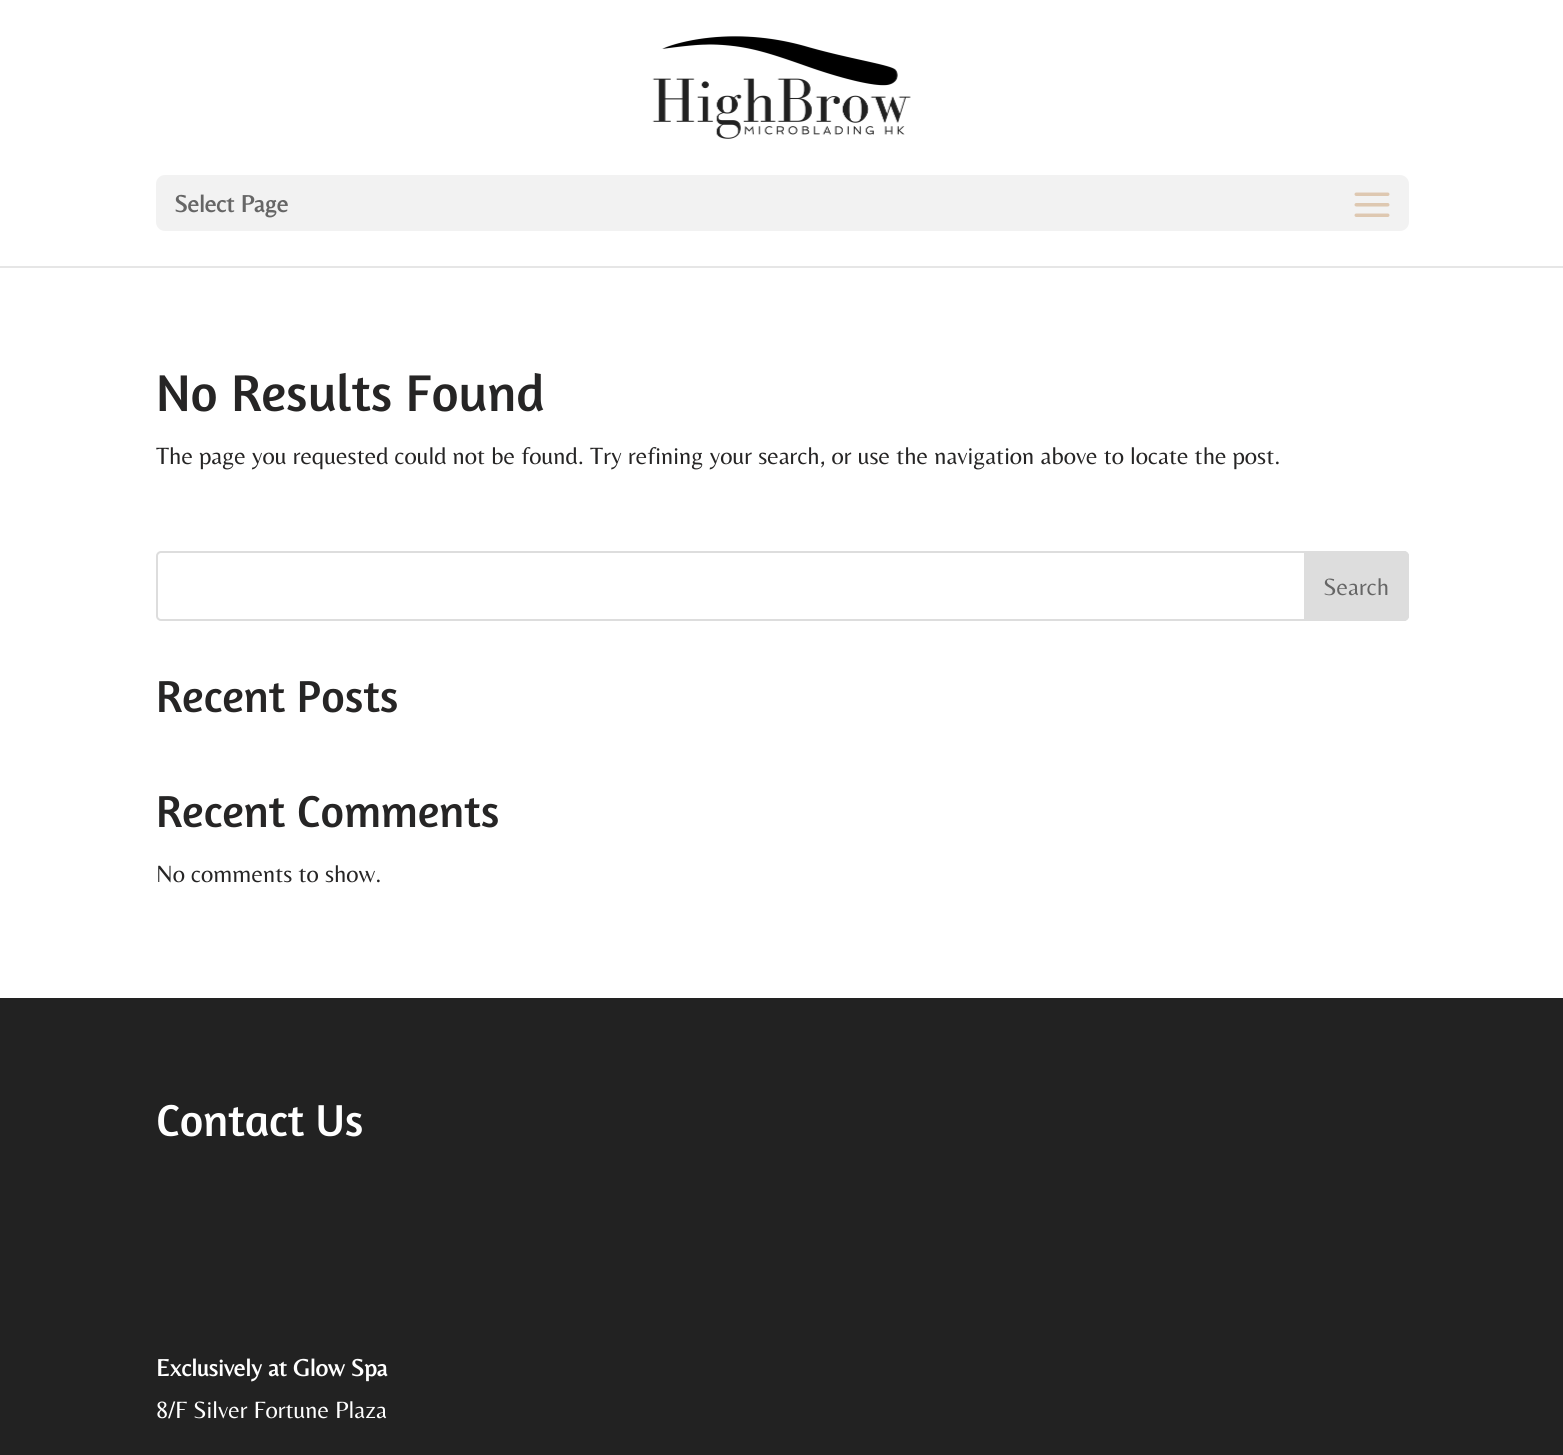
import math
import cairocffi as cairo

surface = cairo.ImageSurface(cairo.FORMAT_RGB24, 1563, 1455)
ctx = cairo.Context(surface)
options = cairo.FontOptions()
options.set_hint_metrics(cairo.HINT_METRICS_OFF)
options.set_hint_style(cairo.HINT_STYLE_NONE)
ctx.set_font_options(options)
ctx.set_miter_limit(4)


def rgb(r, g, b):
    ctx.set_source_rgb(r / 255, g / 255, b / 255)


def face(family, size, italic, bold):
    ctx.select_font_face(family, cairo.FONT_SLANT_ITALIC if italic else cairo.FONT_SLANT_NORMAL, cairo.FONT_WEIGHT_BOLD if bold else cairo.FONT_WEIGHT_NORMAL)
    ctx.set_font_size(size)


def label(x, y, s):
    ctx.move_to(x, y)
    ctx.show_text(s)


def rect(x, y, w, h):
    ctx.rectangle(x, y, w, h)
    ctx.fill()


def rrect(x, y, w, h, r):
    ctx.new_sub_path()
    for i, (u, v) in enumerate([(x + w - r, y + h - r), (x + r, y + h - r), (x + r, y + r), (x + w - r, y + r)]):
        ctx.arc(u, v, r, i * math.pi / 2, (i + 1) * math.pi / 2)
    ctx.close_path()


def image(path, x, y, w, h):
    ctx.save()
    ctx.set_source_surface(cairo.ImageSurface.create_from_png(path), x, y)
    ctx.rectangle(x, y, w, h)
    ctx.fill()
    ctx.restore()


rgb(255, 255, 255)
ctx.paint()
rgb(230, 230, 230)
ctx.new_path()
ctx.move_to(0, 266)
ctx.line_to(0, 268)
ctx.line_to(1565, 268)
ctx.line_to(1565, 2)
ctx.line_to(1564, 2)
ctx.line_to(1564, 266)
ctx.close_path()
ctx.fill()
image('image0.png', 652, 36, 259, 103)
rgb(242, 242, 242)
rrect(156, 175, 1253, 56, 9)
ctx.fill()
face('Belleza', 24.5, 0, 1)
rgb(102, 102, 102)
label(174, 212, 'Select Page')
image('image1.png', 1354, 192, 36, 25)
face('Amaranth', 52.5, 0, 0)
rgb(38, 37, 37)
label(156, 411, 'No Results Found')
face('Belleza', 24.5, 0, 0)
label(156, 464, 'The page you requested could not be found. Try refining your search, or use the navigation above to locate the post.')
rrect(157, 552, 1251, 68, 4)
rgb(221, 221, 221)
ctx.stroke()
ctx.new_path()
ctx.move_to(1305, 552)
ctx.line_to(1404, 552)
ctx.curve_to(1406, 552, 1408, 554, 1408, 556)
ctx.line_to(1408, 616)
ctx.curve_to(1408, 618, 1406, 620, 1404, 620)
ctx.line_to(1305, 620)
ctx.close_path()
ctx.fill_preserve()
ctx.stroke()
rgb(102, 102, 102)
label(1323, 595, 'Search')
face('Amaranth', 45.5, 0, 0)
rgb(38, 37, 37)
label(156, 712, 'Recent Posts')
label(156, 827, 'Recent Comments')
face('Belleza', 24.5, 0, 0)
label(156, 882, 'No comments to show.')
rgb(34, 34, 34)
rect(0, 998, 1563, 457)
face('Amaranth', 45.5, 0, 0)
rgb(255, 255, 255)
label(156, 1136, 'Contact Us')
face('Belleza', 24.5, 0, 1)
label(156, 1376, 'Exclusively at Glow Spa')
face('Belleza', 24.5, 0, 0)
label(156, 1418, '8/F Silver Fortune Plaza')
surface.write_to_png('render.png')
